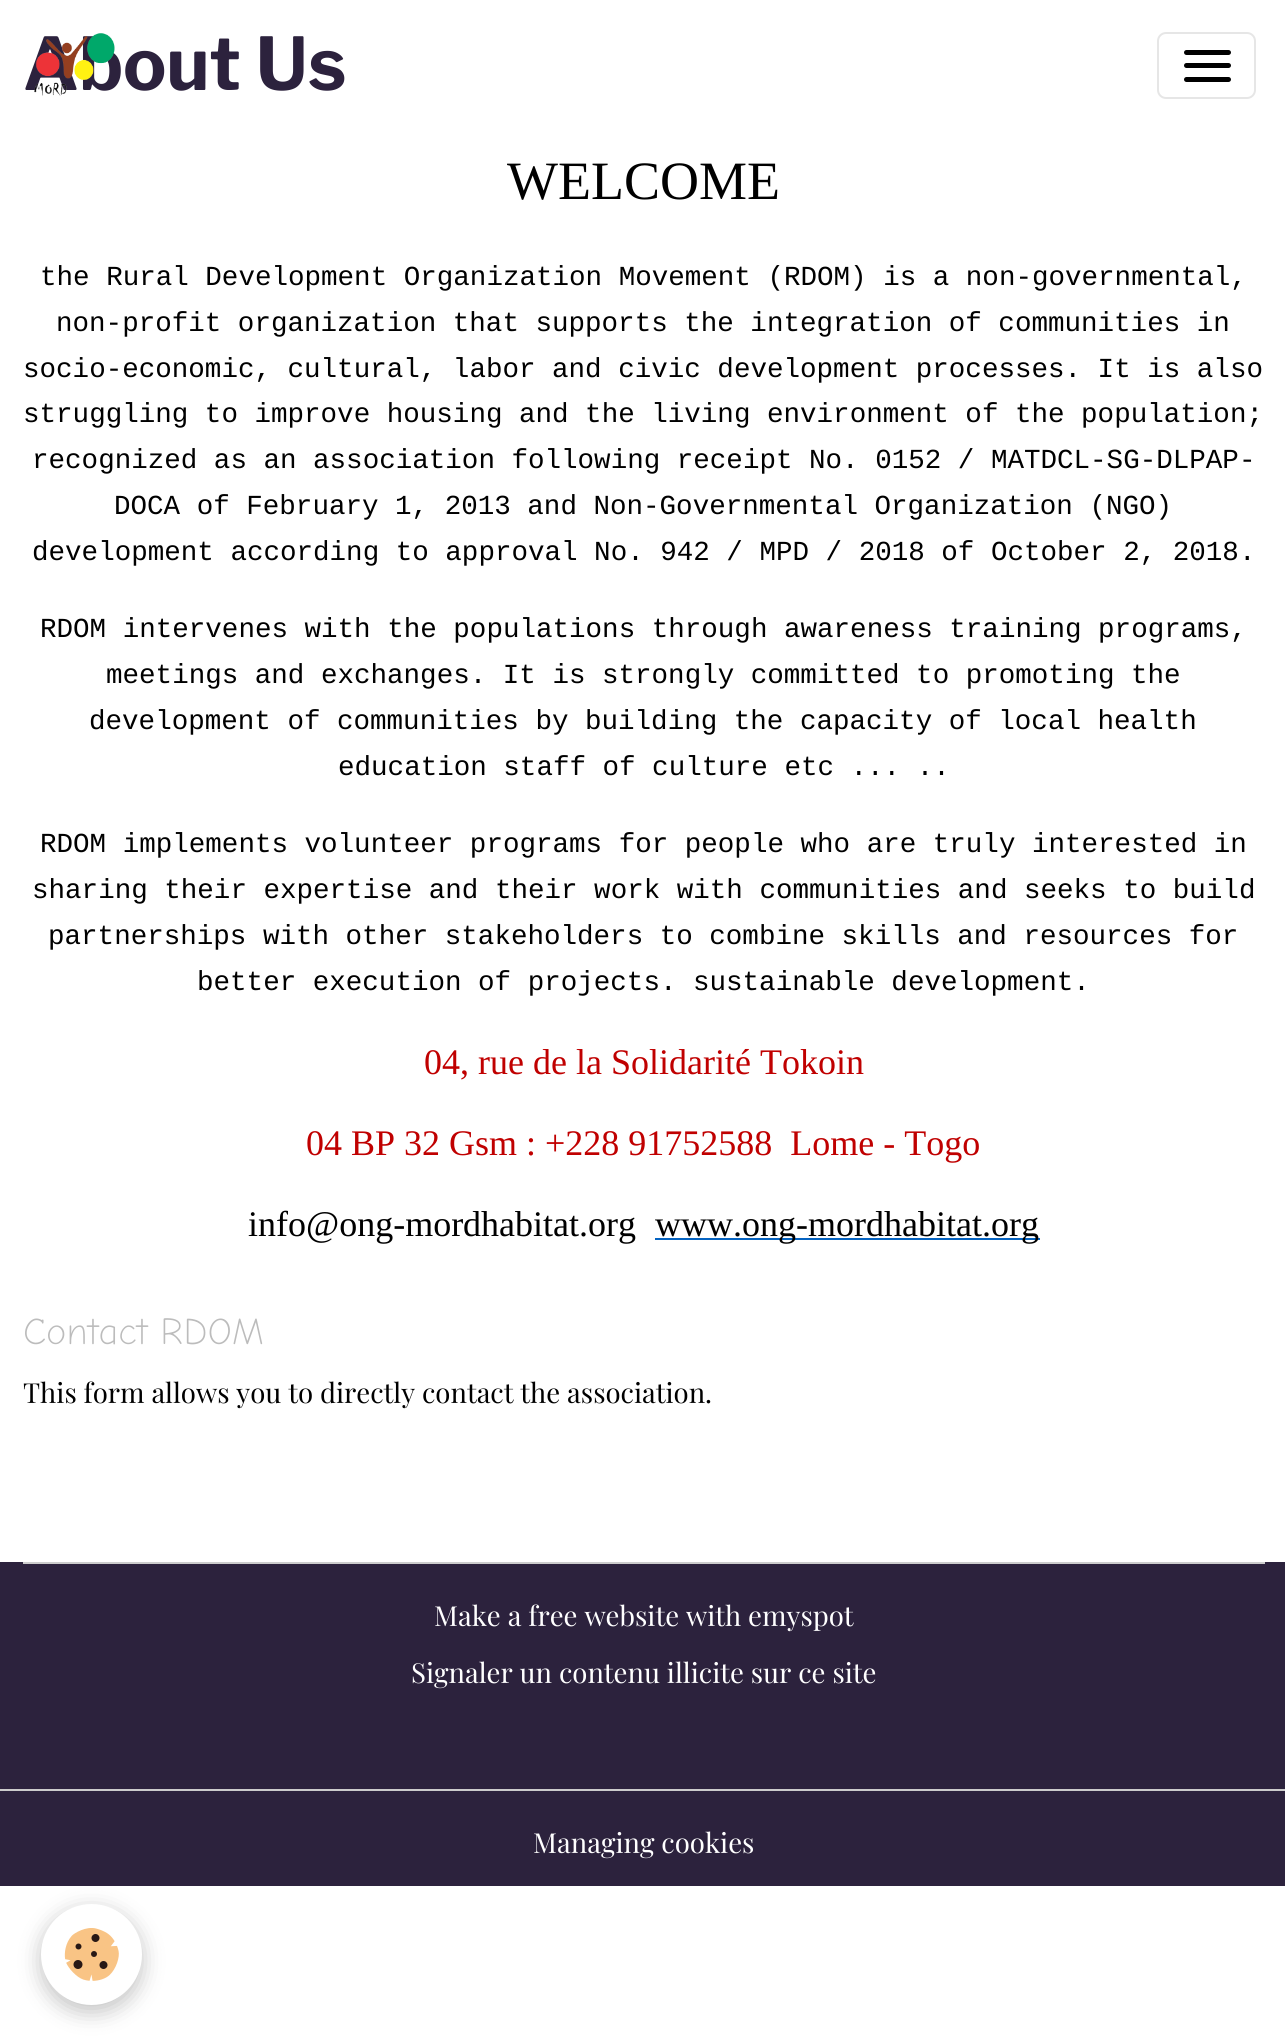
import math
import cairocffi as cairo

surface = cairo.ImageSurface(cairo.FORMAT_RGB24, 1285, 2044)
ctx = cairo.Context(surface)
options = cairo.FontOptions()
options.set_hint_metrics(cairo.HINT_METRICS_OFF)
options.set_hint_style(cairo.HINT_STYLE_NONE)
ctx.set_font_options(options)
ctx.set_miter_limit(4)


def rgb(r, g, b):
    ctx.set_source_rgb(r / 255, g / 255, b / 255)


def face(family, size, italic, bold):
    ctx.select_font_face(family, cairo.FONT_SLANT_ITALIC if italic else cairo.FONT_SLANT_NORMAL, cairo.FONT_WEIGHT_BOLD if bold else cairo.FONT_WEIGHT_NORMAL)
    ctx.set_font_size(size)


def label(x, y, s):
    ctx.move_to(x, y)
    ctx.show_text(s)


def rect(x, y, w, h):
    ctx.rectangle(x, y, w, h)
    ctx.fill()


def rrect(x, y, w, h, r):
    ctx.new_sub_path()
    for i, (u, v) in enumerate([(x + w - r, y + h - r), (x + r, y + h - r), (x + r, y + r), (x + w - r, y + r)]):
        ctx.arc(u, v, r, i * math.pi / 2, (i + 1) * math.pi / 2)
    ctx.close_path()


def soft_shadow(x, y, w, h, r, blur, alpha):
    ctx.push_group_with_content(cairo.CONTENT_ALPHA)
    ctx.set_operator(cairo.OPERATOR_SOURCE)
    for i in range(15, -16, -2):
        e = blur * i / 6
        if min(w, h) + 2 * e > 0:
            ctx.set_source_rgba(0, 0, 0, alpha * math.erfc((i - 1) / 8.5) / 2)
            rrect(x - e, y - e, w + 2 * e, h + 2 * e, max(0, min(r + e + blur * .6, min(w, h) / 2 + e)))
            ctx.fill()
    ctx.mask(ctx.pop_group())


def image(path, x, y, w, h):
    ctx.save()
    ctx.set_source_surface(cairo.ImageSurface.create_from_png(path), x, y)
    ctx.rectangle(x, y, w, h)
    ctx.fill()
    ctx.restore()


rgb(255, 255, 255)
ctx.paint()
face('Libre Franklin', 72.5, 0, 1)
rgb(44, 34, 61)
label(23, 90, 'About Us')
image('image0.png', 34, 33, 81, 63)
rrect(1158, 33, 97, 65, 8)
rgb(230, 230, 230)
ctx.stroke()
rgb(0, 0, 0)
rrect(1184, 50, 47, 5, 2.5)
ctx.fill()
rrect(1184, 63, 47, 5, 2.5)
ctx.fill()
rrect(1184, 77, 47, 5, 2.5)
ctx.fill()
face('Liberation Serif', 54, 0, 0)
label(507, 199, 'WELCOME')
face('Liberation Mono', 27.55, 0, 0)
label(40, 285, 'the Rural Development Organization Movement (RDOM) is a non-governmental,')
label(56, 331, 'non-profit organization that supports the integration of communities in')
label(23, 377, 'socio-economic, cultural, labor and civic development processes. It is also')
label(23, 422, 'struggling to improve housing and the living environment of the population;')
label(32, 468, 'recognized as an association following receipt No. 0152 / MATDCL-SG-DLPAP-')
label(114, 514, 'DOCA of February 1, 2013 and Non-Governmental Organization (NGO)')
label(32, 560, 'development according to approval No. 942 / MPD / 2018 of October 2, 2018.')
label(40, 637, 'RDOM intervenes with the populations through awareness training programs,')
label(106, 683, 'meetings and exchanges. It is strongly committed to promoting the')
label(89, 729, 'development of communities by building the capacity of local health')
label(338, 775, 'education staff of culture etc ... ..')
label(40, 852, 'RDOM implements volunteer programs for people who are truly interested in')
label(32, 898, 'sharing their expertise and their work with communities and seeks to build')
label(48, 944, 'partnerships with other stakeholders to combine skills and resources for')
label(197, 990, 'better execution of projects. sustainable development.')
face('Liberation Serif', 36, 0, 0)
rgb(192, 0, 0)
label(424, 1074, '04, rue de la Solidarité Tokoin')
label(306, 1155, '04 BP 32 Gsm : +228 91752588  Lome - Togo')
rgb(0, 0, 0)
label(248, 1236, 'info@ong-mordhabitat.org')
rgb(5, 99, 193)
rect(655, 1238, 385, 2)
rgb(0, 0, 0)
label(655, 1236, 'www.ong-mordhabitat.org')
face('Comic Neue Light', 37.75, 0, 0)
rgb(188, 188, 188)
label(23, 1344, 'Contact RDOM')
face('Playfair Display', 27.55, 0, 0)
rgb(0, 0, 0)
label(23, 1403, 'This form allows you to directly contact the association.')
rgb(44, 34, 61)
rect(0, 1562, 1285, 324)
rgb(204, 204, 204)
rect(23, 1562, 1242, 2)
rgb(255, 255, 255)
label(434, 1626, 'Make a free website with emyspot')
label(411, 1683, 'Signaler un contenu illicite sur ce site')
rgb(204, 204, 204)
rect(0, 1789, 1285, 2)
rgb(255, 255, 255)
label(533, 1853, 'Managing cookies')
rgb(0, 0, 0)
soft_shadow(41, 1910, 101, 102, 50.5, 11, 0.24)
rgb(255, 255, 255)
ctx.arc(91.5, 1954.5, 50.5, 0, 2 * math.pi)
ctx.fill()
image('image1.png', 64, 1928, 55, 53)
surface.write_to_png('render.png')
